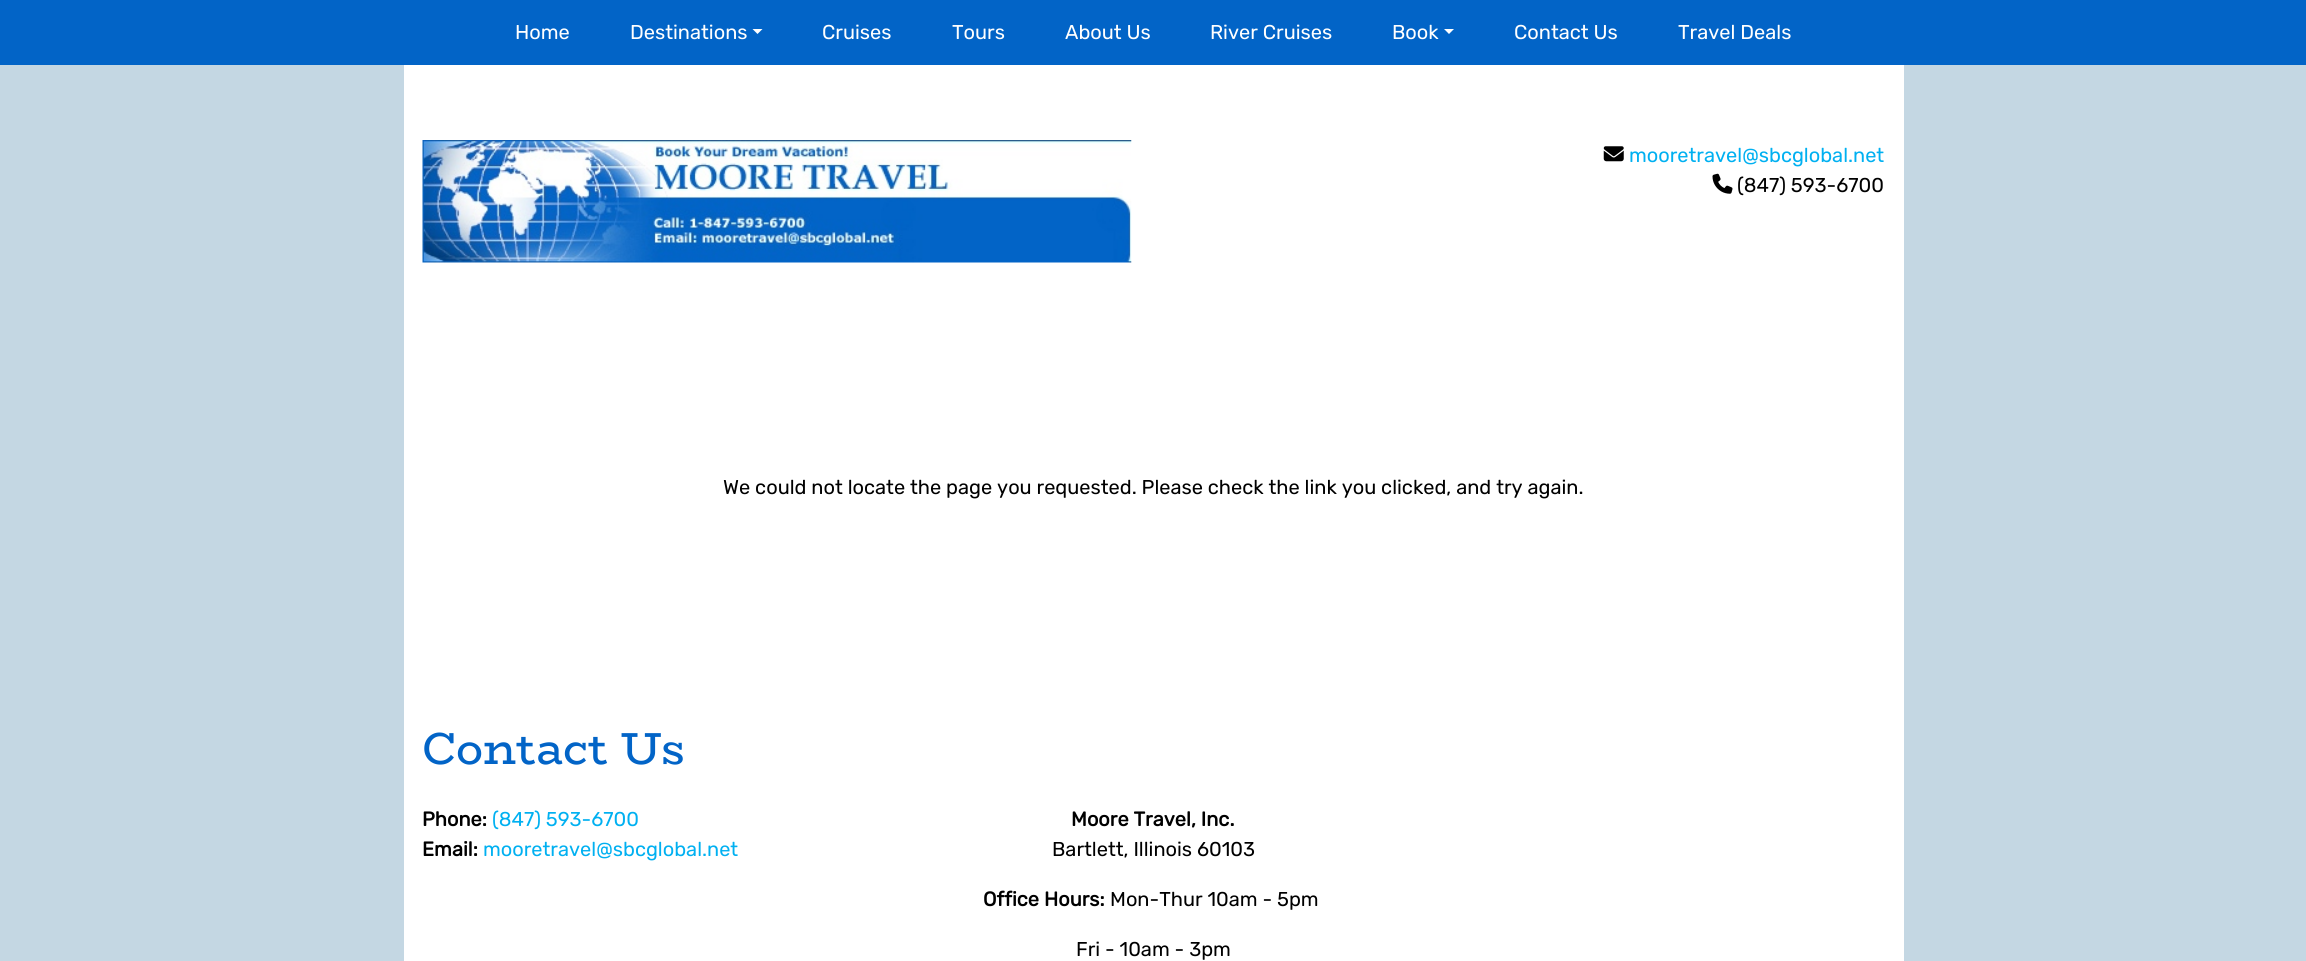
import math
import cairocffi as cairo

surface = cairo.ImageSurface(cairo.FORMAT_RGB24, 2306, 961)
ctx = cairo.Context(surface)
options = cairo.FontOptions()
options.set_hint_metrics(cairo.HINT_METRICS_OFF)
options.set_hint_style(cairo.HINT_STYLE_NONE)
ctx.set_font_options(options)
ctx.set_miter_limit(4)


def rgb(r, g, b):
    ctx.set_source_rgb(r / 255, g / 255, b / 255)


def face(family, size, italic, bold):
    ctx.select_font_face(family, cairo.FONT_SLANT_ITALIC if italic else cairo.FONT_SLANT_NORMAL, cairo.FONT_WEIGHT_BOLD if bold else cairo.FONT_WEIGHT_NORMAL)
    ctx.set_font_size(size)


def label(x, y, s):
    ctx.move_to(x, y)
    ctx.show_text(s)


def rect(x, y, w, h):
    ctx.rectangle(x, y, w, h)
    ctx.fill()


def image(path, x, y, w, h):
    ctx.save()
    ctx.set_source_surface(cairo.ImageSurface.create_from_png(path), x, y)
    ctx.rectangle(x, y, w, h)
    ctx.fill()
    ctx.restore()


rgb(196, 215, 227)
ctx.paint()
rgb(2, 100, 199)
rect(0, 0, 2306, 65)
face('Rubik Light', 20, 0, 0)
rgb(255, 255, 255)
label(515, 39, 'Home')
label(630, 39, 'Destinations')
ctx.new_path()
ctx.move_to(752.5, 29)
ctx.line_to(762.5, 29)
ctx.line_to(757.5, 34)
ctx.close_path()
ctx.fill()
label(822, 39, 'Cruises')
label(952, 39, 'Tours')
label(1065, 39, 'About Us')
label(1210, 39, 'River Cruises')
label(1392, 39, 'Book')
ctx.new_path()
ctx.move_to(1444, 29)
ctx.line_to(1454, 29)
ctx.line_to(1449, 34)
ctx.close_path()
ctx.fill()
label(1514, 39, 'Contact Us')
label(1678, 39, 'Travel Deals')
rect(404, 65, 1500, 721)
image('image0.png', 422, 140, 710, 123)
image('image1.png', 1603, 146, 21, 16)
rgb(0, 176, 241)
label(1629, 162, 'mooretravel@sbcglobal.net')
image('image2.png', 1712, 173, 21, 21)
rgb(0, 0, 0)
label(1737, 192, '(847) 593-6700')
label(723, 494, 'We could not locate the page you requested. Please check the link you clicked, and try again.')
face('BioRhyme ExtraBold', 45, 0, 0)
rgb(2, 100, 199)
label(422, 764, 'Contact Us')
rgb(255, 255, 255)
rect(404, 786, 1500, 175)
face('Rubik', 20, 0, 1)
rgb(0, 0, 0)
label(422, 826, 'Phone:')
face('Rubik Light', 20, 0, 0)
rgb(0, 176, 241)
label(492, 826, '(847) 593-6700')
face('Rubik', 20, 0, 1)
rgb(0, 0, 0)
label(422, 856, 'Email:')
face('Rubik Light', 20, 0, 0)
rgb(0, 176, 241)
label(483, 856, 'mooretravel@sbcglobal.net')
face('Rubik', 20, 0, 1)
rgb(0, 0, 0)
label(1071, 826, 'Moore Travel, Inc.')
face('Rubik Light', 20, 0, 0)
label(1052, 856, 'Bartlett, Illinois 60103')
face('Rubik', 20, 0, 1)
label(983, 906, 'Office Hours:')
face('Rubik Light', 20, 0, 0)
label(1110, 906, 'Mon-Thur 10am - 5pm')
label(1076, 956, 'Fri - 10am - 3pm')
surface.write_to_png('render.png')
